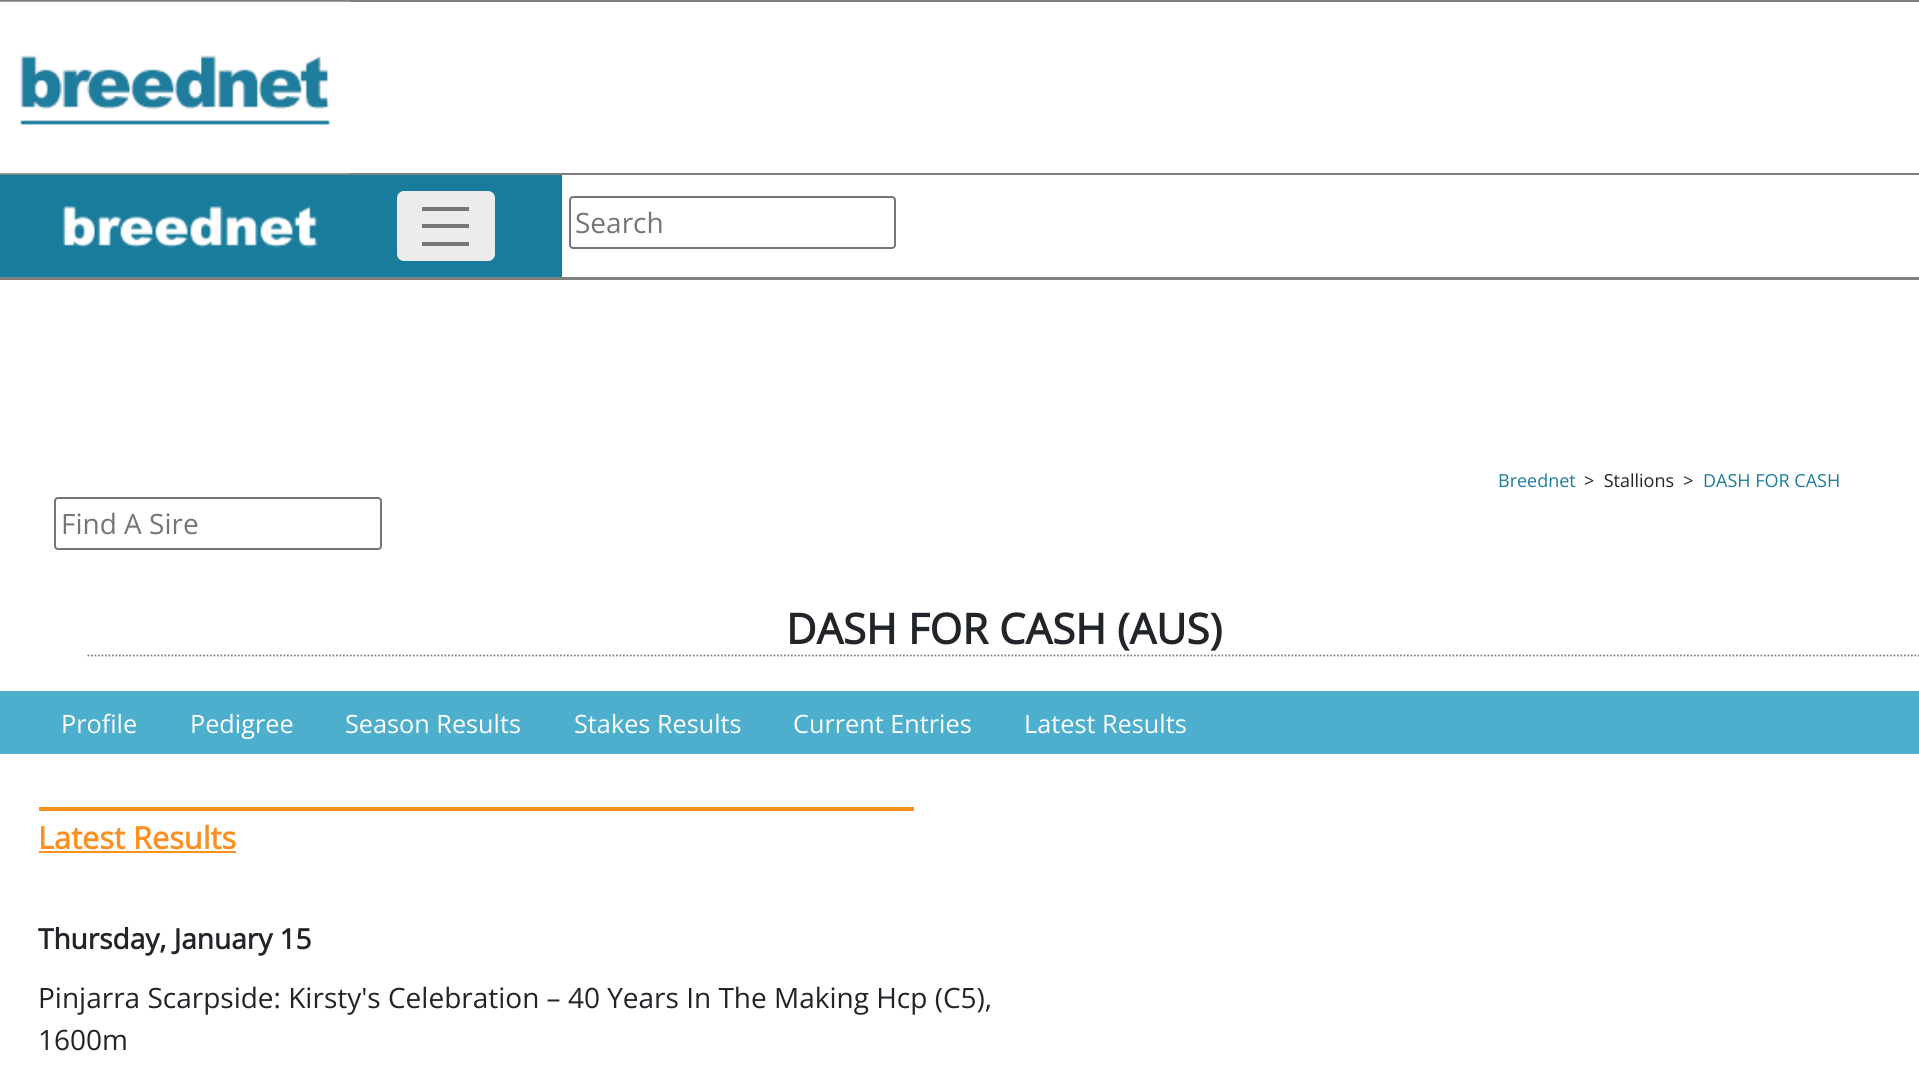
import math
import cairocffi as cairo

surface = cairo.ImageSurface(cairo.FORMAT_RGB24, 1919, 1084)
ctx = cairo.Context(surface)
options = cairo.FontOptions()
options.set_hint_metrics(cairo.HINT_METRICS_OFF)
options.set_hint_style(cairo.HINT_STYLE_NONE)
ctx.set_font_options(options)
ctx.set_miter_limit(4)


def rgb(r, g, b):
    ctx.set_source_rgb(r / 255, g / 255, b / 255)


def face(family, size, italic, bold):
    ctx.select_font_face(family, cairo.FONT_SLANT_ITALIC if italic else cairo.FONT_SLANT_NORMAL, cairo.FONT_WEIGHT_BOLD if bold else cairo.FONT_WEIGHT_NORMAL)
    ctx.set_font_size(size)


def label(x, y, s):
    ctx.move_to(x, y)
    ctx.show_text(s)


def rect(x, y, w, h):
    ctx.rectangle(x, y, w, h)
    ctx.fill()


def rrect(x, y, w, h, r):
    ctx.new_sub_path()
    for i, (u, v) in enumerate([(x + w - r, y + h - r), (x + r, y + h - r), (x + r, y + r), (x + w - r, y + r)]):
        ctx.arc(u, v, r, i * math.pi / 2, (i + 1) * math.pi / 2)
    ctx.close_path()


def image(path, x, y, w, h):
    ctx.save()
    ctx.set_source_surface(cairo.ImageSurface.create_from_png(path), x, y)
    ctx.rectangle(x, y, w, h)
    ctx.fill()
    ctx.restore()


rgb(255, 255, 255)
ctx.paint()
rgb(128, 128, 128)
rect(0, 0, 1919, 2)
rect(0, 277, 1919, 3)
rect(0, 173, 1919, 2)
image('image0.png', 0, 1, 350, 173)
rgb(26, 124, 156)
rect(0, 175, 562, 102)
image('image1.png', 62, 206, 256, 42)
rgb(236, 236, 236)
rrect(397, 191, 98, 70, 7)
ctx.fill()
rgb(118, 118, 118)
rect(422, 207, 47, 4)
rect(422, 224, 47, 4)
rect(422, 242, 47, 4)
rrect(570, 197, 325, 51, 3)
ctx.stroke()
face('Open Sans', 28, 0, 0)
rgb(117, 117, 117)
label(575, 233, 'Search')
face('Open Sans', 18, 0, 0)
rgb(26, 124, 156)
label(1498, 487, 'Breednet')
rgb(33, 37, 41)
label(1584, 487, '>  Stallions  >')
rgb(26, 124, 156)
label(1703, 487, 'DASH FOR CASH')
rrect(55, 498, 326, 51, 3)
rgb(118, 118, 118)
ctx.stroke()
face('Open Sans', 28, 0, 0)
rgb(117, 117, 117)
label(61, 534, 'Find A Sire')
ctx.new_path()
ctx.move_to(87.5, 655.5)
ctx.line_to(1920, 655.5)
rgb(128, 128, 128)
ctx.set_line_width(1.8)
ctx.set_dash([1.75, 1.75])
ctx.stroke()
face('Open Sans', 42, 0, 1)
rgb(33, 37, 41)
label(786, 644, 'DASH FOR CASH (AUS)')
rgb(77, 174, 206)
rect(0, 691, 1919, 63)
face('Open Sans', 25.25, 0, 0)
rgb(255, 255, 255)
label(61, 733, 'Profile')
label(190, 733, 'Pedigree')
label(345, 733, 'Season Results')
label(574, 733, 'Stakes Results')
label(793, 733, 'Current Entries')
label(1024, 733, 'Latest Results')
rgb(250, 144, 34)
rect(39, 807, 875, 4)
face('Open Sans', 30.75, 0, 1)
label(38, 849, 'Latest Results')
rect(39, 851, 197, 2)
face('Open Sans', 28, 0, 1)
rgb(33, 37, 41)
label(38, 949, 'Thursday, January 15')
face('Open Sans', 28, 0, 0)
label(38, 1008, 'Pinjarra Scarpside: Kirsty\'s Celebration – 40 Years In The Making Hcp (C5),')
label(38, 1050, '1600m')
surface.write_to_png('render.png')
